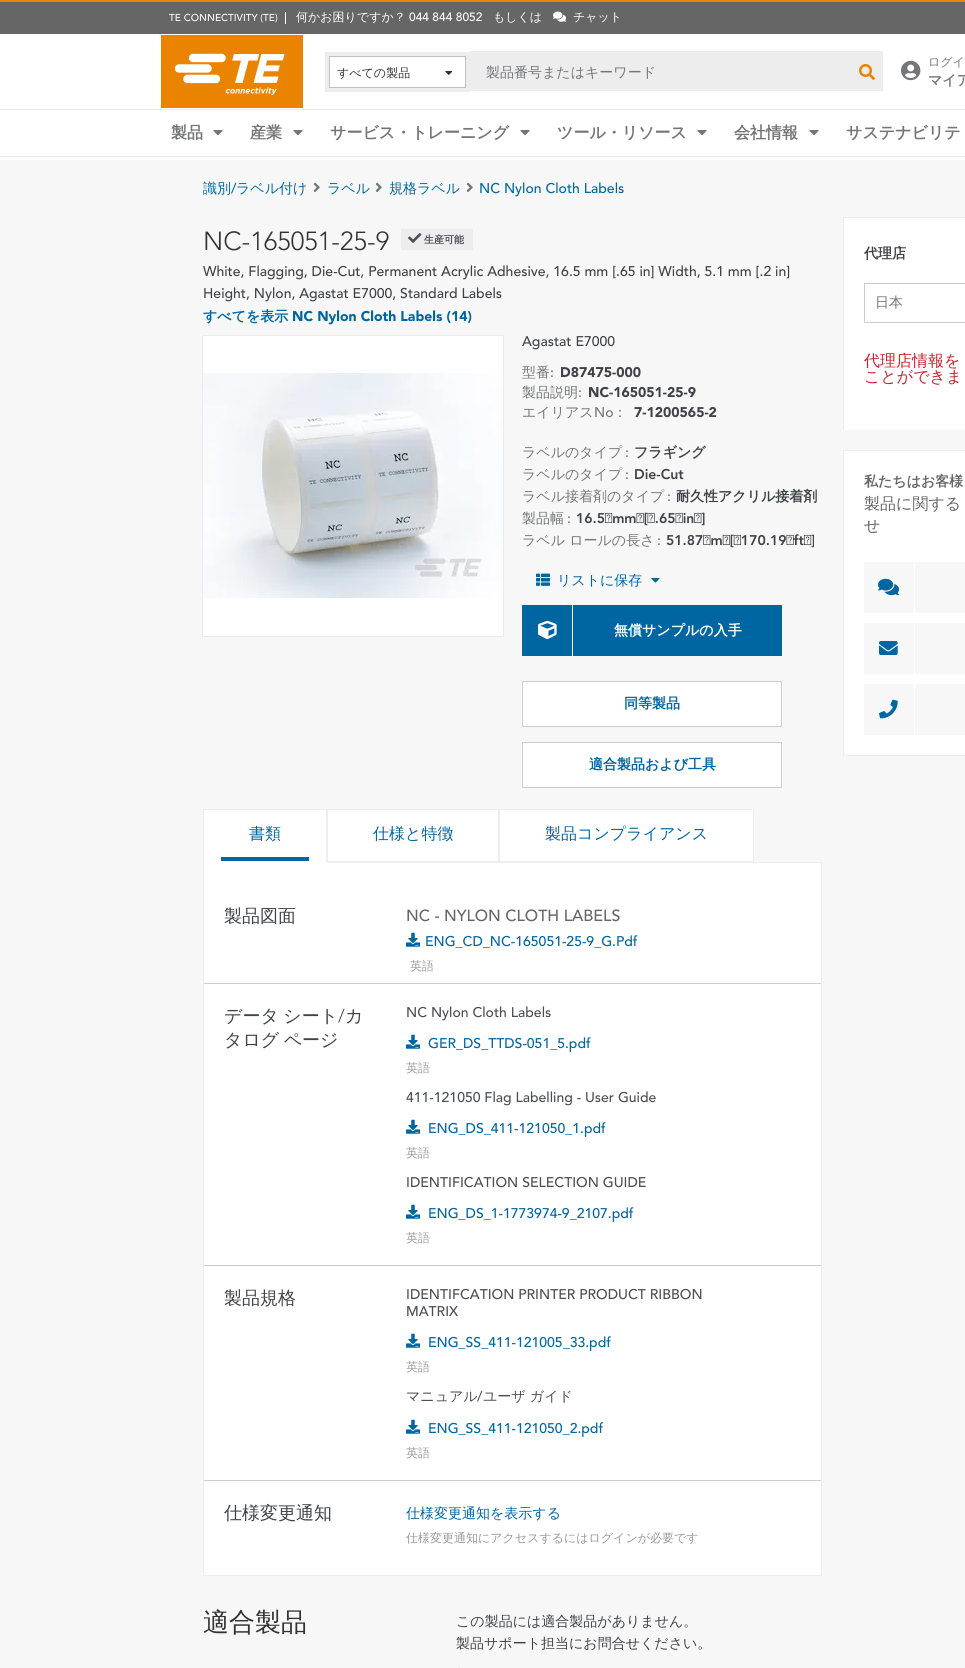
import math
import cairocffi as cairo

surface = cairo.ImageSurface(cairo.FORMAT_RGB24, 965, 1668)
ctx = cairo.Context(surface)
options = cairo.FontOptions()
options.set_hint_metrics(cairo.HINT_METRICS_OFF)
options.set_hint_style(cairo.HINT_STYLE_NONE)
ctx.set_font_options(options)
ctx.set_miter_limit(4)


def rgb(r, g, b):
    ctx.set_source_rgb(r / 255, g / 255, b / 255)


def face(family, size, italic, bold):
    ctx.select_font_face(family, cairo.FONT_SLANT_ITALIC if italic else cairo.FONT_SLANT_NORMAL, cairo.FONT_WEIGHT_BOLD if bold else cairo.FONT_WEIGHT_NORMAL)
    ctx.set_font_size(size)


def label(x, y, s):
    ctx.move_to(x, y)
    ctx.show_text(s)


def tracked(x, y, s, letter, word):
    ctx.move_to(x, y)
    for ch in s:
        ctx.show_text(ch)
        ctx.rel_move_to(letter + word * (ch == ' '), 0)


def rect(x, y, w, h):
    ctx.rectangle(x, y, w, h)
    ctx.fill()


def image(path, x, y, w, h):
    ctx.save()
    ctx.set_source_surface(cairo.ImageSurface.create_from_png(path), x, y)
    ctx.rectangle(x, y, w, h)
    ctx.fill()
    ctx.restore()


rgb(255, 255, 255)
ctx.paint()
rgb(102, 102, 102)
rect(0, 2, 965, 32)
rgb(233, 131, 0)
rect(0, 0, 965, 2)
face('Avenir Medium', 10, 0, 0)
rgb(255, 255, 255)
label(169, 21, 'TE CONNECTIVITY (TE)')
rect(285, 12, 1, 12)
face('WenQuanYi Zen Hei Medium', 12, 0, 0)
label(296, 21, '何かお困りですか？')
face('Avenir Medium', 12, 0, 0)
label(409, 21, '044 844 8052')
face('WenQuanYi Zen Hei Medium', 12, 0, 0)
label(493, 21, 'もしくは')
image('image0.png', 553, 11, 13, 11)
label(573, 21, 'チャット')
image('image1.png', 161, 35, 142, 73)
rgb(237, 237, 238)
rect(469, 51, 414, 40)
rect(325, 52, 145, 40)
rgb(255, 255, 255)
ctx.rectangle(329.5, 56.5, 136, 31)
ctx.fill_preserve()
rgb(191, 191, 191)
ctx.set_line_width(1)
ctx.stroke()
rgb(51, 51, 51)
label(337, 77, 'すべての製品')
image('image2.png', 445, 71, 8, 4)
face('WenQuanYi Zen Hei Medium', 14, 0, 0)
rgb(116, 118, 120)
label(486, 77, '製品番号またはキーワード')
image('image3.png', 859, 64, 16, 16)
image('image4.png', 901, 60, 20, 21)
face('WenQuanYi Zen Hei Medium', 12, 0, 0)
label(928, 66, 'ログイ')
face('WenQuanYi Zen Hei', 14, 0, 1)
label(928, 85, 'マイア')
rgb(237, 237, 238)
rect(0, 109, 965, 1)
rect(0, 156, 965, 1)
face('WenQuanYi Zen Hei', 16, 0, 1)
rgb(116, 118, 120)
label(171, 138, '製品')
image('image5.png', 213, 130, 10, 6)
label(250, 138, '産業')
image('image5.png', 293, 130, 10, 6)
label(330, 138, 'サービス・トレーニング')
image('image5.png', 520, 130, 10, 6)
label(557, 138, 'ツール・リソース')
image('image5.png', 697, 130, 10, 6)
label(734, 138, '会社情報')
image('image5.png', 809, 130, 10, 6)
label(846, 138, 'サステナビリテ')
rgb(247, 247, 247)
rect(0, 160, 965, 1508)
face('WenQuanYi Zen Hei Medium', 14, 0, 0)
rgb(0, 102, 161)
label(203, 193, '識別')
face('Avenir Medium', 14, 0, 0)
label(231, 193, '/')
face('WenQuanYi Zen Hei Medium', 14, 0, 0)
label(236, 193, 'ラベル付け')
image('image6.png', 313, 182, 7, 10)
label(327, 193, 'ラベル')
image('image6.png', 375, 182, 7, 10)
label(389, 193, '規格ラベル')
image('image6.png', 466, 182, 7, 10)
face('Avenir Medium', 14, 0, 0)
label(479, 193, 'NC Nylon Cloth Labels')
face('Avenir Light', 26, 0, 0)
rgb(51, 51, 51)
label(203, 250, 'NC-165051-25-9')
rgb(237, 237, 238)
rect(401, 229, 72, 21)
image('image7.png', 408, 233, 14, 10)
face('WenQuanYi Zen Hei', 10, 0, 1)
rgb(74, 79, 85)
label(424, 243, '生産可能')
face('Avenir Medium', 14, 0, 0)
rgb(63, 67, 72)
label(203, 276, 'White, Flagging, Die-Cut, Permanent Acrylic Adhesive, 16.5 mm [.65 in] Width, 5.1 mm [.2 in]')
label(203, 298, 'Height, Nylon, Agastat E7000, Standard Labels')
face('WenQuanYi Zen Hei', 14, 0, 1)
rgb(0, 102, 161)
label(203, 321, 'すべてを表示')
face('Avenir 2 Black', 14, 0, 0)
label(292, 321, 'NC Nylon Cloth Labels (14)')
rgb(255, 255, 255)
rect(203, 336, 300, 300)
image('image8.png', 203, 373, 300, 225)
ctx.rectangle(202.5, 335.5, 301, 301)
rgb(235, 235, 235)
ctx.stroke()
face('Avenir Medium', 14, 0, 0)
rgb(63, 67, 72)
label(522, 346, 'Agastat E7000')
face('WenQuanYi Zen Hei Medium', 14, 0, 0)
rgb(116, 118, 120)
label(522, 377, '型番')
face('Avenir Medium', 14, 0, 0)
label(550, 377, ':')
face('Avenir 2 Black', 14, 0, 0)
rgb(63, 67, 72)
label(560, 377, 'D87475-000')
face('WenQuanYi Zen Hei Medium', 14, 0, 0)
rgb(116, 118, 120)
label(522, 397, '製品説明')
face('Avenir Medium', 14, 0, 0)
label(578, 397, ':')
face('Avenir 2 Black', 14, 0, 0)
rgb(63, 67, 72)
label(588, 397, 'NC-165051-25-9')
face('WenQuanYi Zen Hei Medium', 14, 0, 0)
rgb(116, 118, 120)
label(522, 417, 'エイリアス')
face('Avenir Medium', 14, 0, 0)
label(594, 417, 'No')
face('WenQuanYi Zen Hei Medium', 14, 0, 0)
label(613, 417, '：')
face('Avenir 2 Black', 14, 0, 0)
rgb(63, 67, 72)
label(634, 417, '7-1200565-2')
face('WenQuanYi Zen Hei Medium', 14, 0, 0)
rgb(116, 118, 120)
label(522, 457, 'ラベルのタイプ')
face('Avenir Medium', 14, 0, 0)
label(625, 457, ':')
face('WenQuanYi Zen Hei', 14, 0, 1)
rgb(63, 67, 72)
label(634, 457, 'フラギング')
face('WenQuanYi Zen Hei Medium', 14, 0, 0)
rgb(116, 118, 120)
label(522, 479, 'ラベルのタイプ')
face('Avenir Medium', 14, 0, 0)
label(625, 479, ':')
face('Avenir Black', 14, 0, 0)
rgb(63, 67, 72)
label(634, 479, 'Die-Cut')
face('WenQuanYi Zen Hei Medium', 14, 0, 0)
rgb(116, 118, 120)
label(522, 501, 'ラベル接着剤のタイプ')
face('Avenir Medium', 14, 0, 0)
label(667, 501, ':')
face('WenQuanYi Zen Hei', 14, 0, 1)
rgb(63, 67, 72)
label(676, 501, '耐久性アクリル接着剤')
face('WenQuanYi Zen Hei Medium', 14, 0, 0)
rgb(116, 118, 120)
label(522, 523, '製品幅')
face('Avenir Medium', 14, 0, 0)
label(567, 523, ':')
face('Avenir Black', 14, 0, 0)
rgb(63, 67, 72)
label(576, 523, '16.5 mm [ .65 in ]')
face('WenQuanYi Zen Hei Medium', 14, 0, 0)
rgb(116, 118, 120)
label(522, 545, 'ラベル ロールの長さ')
face('Avenir Medium', 14, 0, 0)
label(657, 545, ':')
face('Avenir Black', 14, 0, 0)
rgb(63, 67, 72)
label(666, 545, '51.87 m [ 170.19 ft ]')
image('image9.png', 536, 573, 14, 13)
face('WenQuanYi Zen Hei Medium', 14, 0, 0)
rgb(0, 102, 161)
label(557, 585, 'リストに保存')
image('image10.png', 651, 578, 9, 5)
rect(522, 605, 260, 51)
rgb(255, 255, 255)
rect(572, 605, 1, 51)
image('image11.png', 538, 620, 19, 20)
face('WenQuanYi Zen Hei', 14, 0, 1)
label(614, 635, '無償サンプルの入手')
ctx.rectangle(522.5, 681.5, 259, 45)
ctx.fill_preserve()
rgb(204, 204, 204)
ctx.stroke()
rgb(0, 102, 161)
label(624, 708, '同等製品')
rgb(255, 255, 255)
ctx.rectangle(522.5, 742.5, 259, 45)
ctx.fill_preserve()
rgb(204, 204, 204)
ctx.stroke()
rgb(0, 102, 161)
label(589, 769, '適合製品および工具')
rgb(255, 255, 255)
rect(844, 218, 121, 212)
rgb(237, 237, 238)
rect(843, 217, 122, 1)
rect(843, 217, 1, 213)
rgb(63, 67, 72)
label(864, 258, '代理店')
ctx.rectangle(864.5, 283.5, 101, 39)
rgb(204, 204, 204)
ctx.stroke()
face('WenQuanYi Zen Hei Medium', 14, 0, 0)
rgb(116, 118, 120)
label(875, 307, '日本')
face('WenQuanYi Zen Hei Medium', 16, 0, 0)
rgb(205, 32, 44)
label(864, 366, '代理店情報を')
label(864, 382, 'ことができま')
rgb(255, 255, 255)
ctx.rectangle(843.5, 450.5, 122, 305)
ctx.fill_preserve()
rgb(237, 237, 238)
ctx.stroke()
face('WenQuanYi Zen Hei', 14, 0, 1)
rgb(102, 102, 102)
label(864, 486, '私たちはお客様')
face('WenQuanYi Zen Hei Medium', 16, 0, 0)
label(864, 509, '製品に関する')
label(864, 531, 'せ')
rgb(247, 247, 247)
rect(864, 562, 101, 51)
rgb(255, 255, 255)
rect(914, 562, 1, 51)
image('image12.png', 878, 578, 21, 18)
rgb(247, 247, 247)
rect(864, 623, 101, 51)
rgb(255, 255, 255)
rect(914, 623, 1, 51)
image('image13.png', 879, 641, 19, 14)
rgb(247, 247, 247)
rect(864, 684, 101, 51)
rgb(255, 255, 255)
rect(914, 684, 1, 51)
image('image14.png', 879, 699, 19, 20)
rect(204, 863, 617, 712)
rgb(237, 237, 238)
rect(203, 862, 619, 1)
rgb(255, 255, 255)
rect(204, 810, 122, 51)
rgb(237, 237, 238)
rect(203, 809, 124, 1)
ctx.new_path()
ctx.move_to(327, 809)
ctx.line_to(327, 863)
ctx.line_to(326, 861)
ctx.line_to(326, 810)
ctx.close_path()
ctx.fill()
rgb(255, 255, 255)
ctx.new_path()
ctx.move_to(327, 863)
ctx.line_to(203, 863)
ctx.line_to(204, 861)
ctx.line_to(326, 861)
ctx.close_path()
ctx.fill()
rgb(237, 237, 238)
ctx.new_path()
ctx.move_to(203, 863)
ctx.line_to(203, 809)
ctx.line_to(204, 810)
ctx.line_to(204, 861)
ctx.close_path()
ctx.fill()
rgb(0, 102, 161)
rect(221, 857, 88, 4)
label(249, 839, '書類')
rgb(255, 255, 255)
ctx.rectangle(327.5, 809.5, 171, 52)
ctx.fill_preserve()
rgb(237, 237, 238)
ctx.stroke()
rgb(0, 102, 161)
label(373, 839, '仕様と特徴')
rgb(255, 255, 255)
ctx.rectangle(499.5, 809.5, 254, 52)
ctx.fill_preserve()
rgb(237, 237, 238)
ctx.stroke()
rgb(0, 102, 161)
label(545, 839, '製品コンプライアンス')
rgb(237, 237, 238)
rect(821, 863, 1, 713)
rect(203, 1575, 619, 1)
rect(203, 863, 1, 713)
rgb(204, 204, 204)
rect(204, 983, 617, 1)
face('WenQuanYi Zen Hei Medium', 18, 0, 0)
rgb(63, 67, 72)
label(224, 922, '製品図面')
face('Avenir Medium', 16, 0, 0)
rgb(102, 102, 102)
label(406, 921, 'NC - NYLON CLOTH LABELS')
image('image15.png', 406, 932, 14, 15)
face('Avenir Medium', 14, 0, 0)
rgb(0, 102, 161)
label(425, 946, 'ENG_CD_NC-165051-25-9_G.Pdf')
face('WenQuanYi Zen Hei Medium', 12, 0, 0)
rgb(153, 153, 153)
label(410, 970, '英語')
rgb(204, 204, 204)
rect(204, 1265, 617, 1)
face('WenQuanYi Zen Hei Medium', 18, 0, 0)
rgb(63, 67, 72)
tracked(224, 1022, 'データ シート', 0, -1)
face('Avenir Light', 18, 0, 0)
label(338, 1022, '/')
face('WenQuanYi Zen Hei Medium', 18, 0, 0)
label(345, 1022, 'カ')
tracked(224, 1046, 'タログ ページ', 0, -1)
face('Avenir Medium', 14, 0, 0)
rgb(74, 79, 85)
label(406, 1017, 'NC Nylon Cloth Labels')
image('image15.png', 406, 1034, 14, 15)
rgb(0, 102, 161)
label(428, 1048, 'GER_DS_TTDS-051_5.pdf')
face('WenQuanYi Zen Hei Medium', 12, 0, 0)
rgb(153, 153, 153)
label(406, 1072, '英語')
face('Avenir Medium', 14, 0, 0)
rgb(74, 79, 85)
label(406, 1102, '411-121050 Flag Labelling - User Guide')
image('image15.png', 406, 1119, 14, 15)
rgb(0, 102, 161)
label(428, 1133, 'ENG_DS_411-121050_1.pdf')
face('WenQuanYi Zen Hei Medium', 12, 0, 0)
rgb(153, 153, 153)
label(406, 1157, '英語')
face('Avenir Medium', 14, 0, 0)
rgb(74, 79, 85)
label(406, 1187, 'IDENTIFICATION SELECTION GUIDE')
image('image15.png', 406, 1204, 14, 15)
rgb(0, 102, 161)
label(428, 1218, 'ENG_DS_1-1773974-9_2107.pdf')
face('WenQuanYi Zen Hei Medium', 12, 0, 0)
rgb(153, 153, 153)
label(406, 1242, '英語')
rgb(204, 204, 204)
rect(204, 1480, 617, 1)
face('WenQuanYi Zen Hei Medium', 18, 0, 0)
rgb(63, 67, 72)
label(224, 1304, '製品規格')
face('Avenir Medium', 14, 0, 0)
rgb(74, 79, 85)
label(406, 1299, 'IDENTIFCATION PRINTER PRODUCT RIBBON')
label(406, 1316, 'MATRIX')
image('image15.png', 406, 1333, 14, 15)
rgb(0, 102, 161)
label(428, 1347, 'ENG_SS_411-121005_33.pdf')
face('WenQuanYi Zen Hei Medium', 12, 0, 0)
rgb(153, 153, 153)
label(406, 1371, '英語')
face('WenQuanYi Zen Hei Medium', 14, 0, 0)
rgb(74, 79, 85)
label(406, 1401, 'マニュアル')
face('Avenir Medium', 14, 0, 0)
label(477, 1401, '/')
face('WenQuanYi Zen Hei Medium', 14, 0, 0)
label(483, 1401, 'ユーザ ガイド')
image('image15.png', 406, 1419, 14, 15)
face('Avenir Medium', 14, 0, 0)
rgb(0, 102, 161)
label(428, 1433, 'ENG_SS_411-121050_2.pdf')
face('WenQuanYi Zen Hei Medium', 12, 0, 0)
rgb(153, 153, 153)
label(406, 1457, '英語')
face('WenQuanYi Zen Hei Medium', 18, 0, 0)
rgb(63, 67, 72)
label(224, 1519, '仕様変更通知')
face('WenQuanYi Zen Hei Medium', 14, 0, 0)
rgb(0, 102, 161)
label(406, 1518, '仕様変更通知を表示する')
face('WenQuanYi Zen Hei Medium', 12, 0, 0)
rgb(153, 153, 153)
label(406, 1542, '仕様変更通知にアクセスするにはログインが必要です')
face('WenQuanYi Zen Hei Medium', 26, 0, 0)
rgb(51, 51, 51)
label(203, 1631, '適合製品')
face('WenQuanYi Zen Hei Medium', 14, 0, 0)
rgb(63, 67, 72)
label(456, 1626, 'この製品には適合製品がありません。')
label(456, 1648, '製品サポート担当にお問合せください。')
rgb(231, 231, 231)
rect(459, 1667, 1, 1)
surface.write_to_png('render.png')
